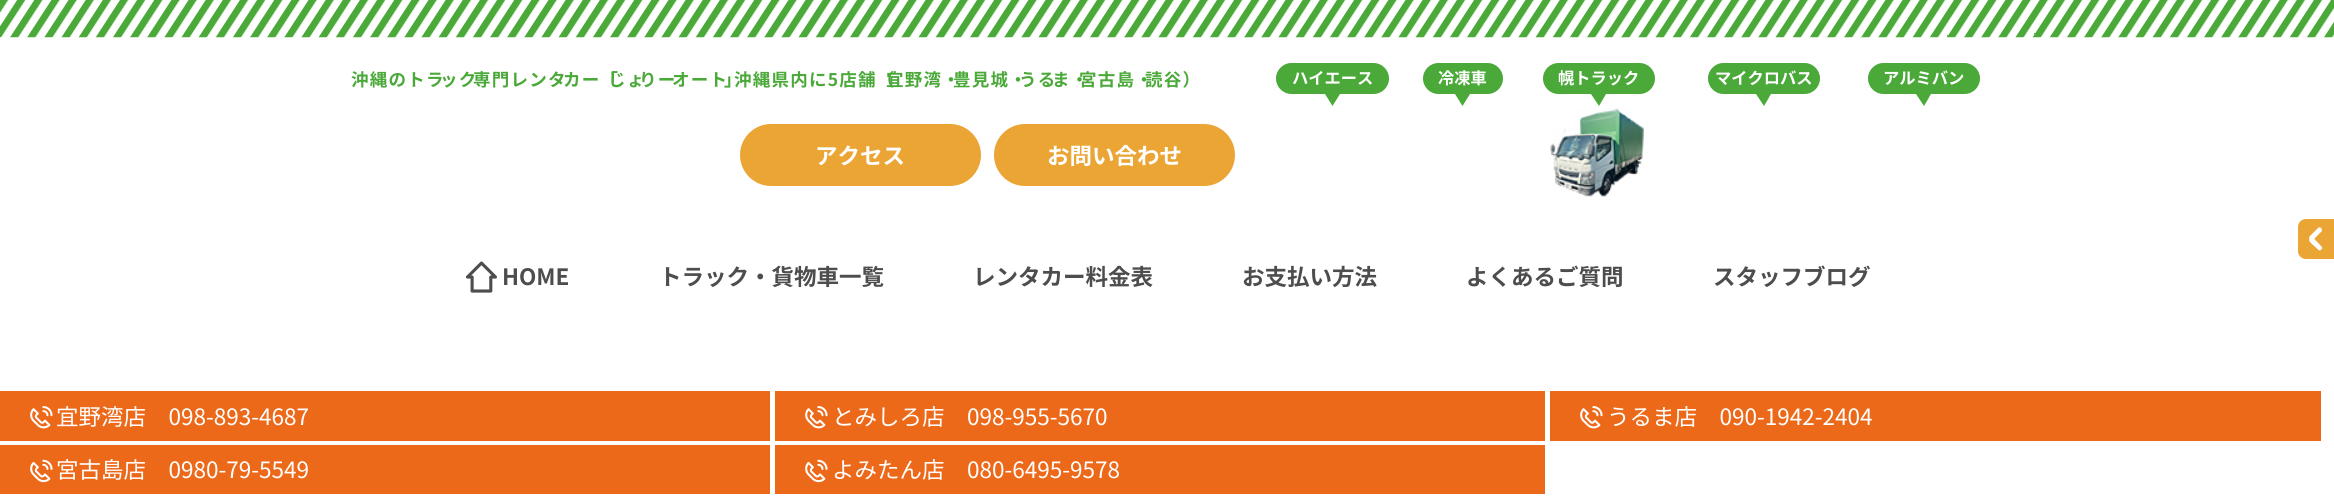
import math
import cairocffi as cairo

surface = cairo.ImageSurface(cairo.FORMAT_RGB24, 2334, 497)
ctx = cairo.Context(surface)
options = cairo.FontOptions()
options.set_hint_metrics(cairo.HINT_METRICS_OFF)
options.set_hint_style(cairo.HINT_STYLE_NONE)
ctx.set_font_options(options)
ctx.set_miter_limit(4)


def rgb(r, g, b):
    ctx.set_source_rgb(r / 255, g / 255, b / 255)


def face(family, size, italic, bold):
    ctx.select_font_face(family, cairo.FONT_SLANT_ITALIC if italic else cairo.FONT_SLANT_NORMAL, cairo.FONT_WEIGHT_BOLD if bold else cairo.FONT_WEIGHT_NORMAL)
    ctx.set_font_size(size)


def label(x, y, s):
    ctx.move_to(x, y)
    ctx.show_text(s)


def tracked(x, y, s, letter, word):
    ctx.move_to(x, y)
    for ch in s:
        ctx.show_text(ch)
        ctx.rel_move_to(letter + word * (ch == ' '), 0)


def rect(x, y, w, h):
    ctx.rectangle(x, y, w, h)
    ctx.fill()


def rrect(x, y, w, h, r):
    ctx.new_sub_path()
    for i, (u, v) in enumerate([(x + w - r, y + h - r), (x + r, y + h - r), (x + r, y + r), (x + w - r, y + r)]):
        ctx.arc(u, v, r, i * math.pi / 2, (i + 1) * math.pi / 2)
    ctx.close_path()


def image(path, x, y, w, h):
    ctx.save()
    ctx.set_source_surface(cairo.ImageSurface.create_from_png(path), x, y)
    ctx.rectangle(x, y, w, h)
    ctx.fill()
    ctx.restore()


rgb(255, 255, 255)
ctx.paint()
image('image0.png', 0, 0, 2334, 38)
face('Noto Sans JP', 17.5, 0, 1)
rgb(75, 169, 58)
tracked(351, 86, '沖縄のトラ', 1.25, 0)
tracked(440, 86, 'ック', 1.25, 0)
tracked(473, 86, '専門レンタ', 1.25, 0)
tracked(563, 86, 'カー「', 1.25, 0)
tracked(608, 86, 'じょ', 1.25, 0)
tracked(639, 86, 'りー', 1.25, 0)
tracked(672, 86, 'オート', 1.25, 0)
tracked(724, 86, '」', 1.25, 0)
tracked(734, 86, '沖縄県内に5店舗（', 1.25, 0)
tracked(886, 86, '宜野湾・', 1.25, 0)
tracked(953, 86, '豊見城・', 1.25, 0)
tracked(1019, 86, 'うる', 1.25, 0)
tracked(1052, 86, 'ま・', 1.25, 0)
tracked(1079, 86, '宮古島・', 1.25, 0)
tracked(1145, 86, '読谷）', 1.25, 0)
rrect(1276, 63, 113, 31, 15.5)
ctx.fill()
face('Noto Sans JP', 16.25, 0, 1)
rgb(255, 255, 255)
label(1292, 84, 'ハイエース')
rgb(75, 169, 58)
ctx.new_path()
ctx.move_to(1325, 94)
ctx.line_to(1340, 94)
ctx.line_to(1332.5, 106)
ctx.close_path()
ctx.fill()
rrect(1423, 63, 80, 31, 15.5)
ctx.fill()
rgb(255, 255, 255)
label(1438, 84, '冷凍車')
rgb(75, 169, 58)
ctx.new_path()
ctx.move_to(1455, 94)
ctx.line_to(1470, 94)
ctx.line_to(1462.5, 106)
ctx.close_path()
ctx.fill()
rrect(1543, 63, 112, 31, 15.5)
ctx.fill()
rgb(255, 255, 255)
label(1558, 84, '幌トラック')
rgb(75, 169, 58)
ctx.new_path()
ctx.move_to(1591, 94)
ctx.line_to(1606, 94)
ctx.line_to(1599, 106)
ctx.close_path()
ctx.fill()
image('image1.png', 1549, 108, 95, 89)
rrect(1708, 63, 112, 31, 15.5)
ctx.fill()
rgb(255, 255, 255)
label(1715, 84, 'マイクロバス')
rgb(75, 169, 58)
ctx.new_path()
ctx.move_to(1756, 94)
ctx.line_to(1771, 94)
ctx.line_to(1764, 106)
ctx.close_path()
ctx.fill()
rrect(1868, 63, 112, 31, 15.5)
ctx.fill()
rgb(255, 255, 255)
label(1883, 84, 'アルミバン')
rgb(75, 169, 58)
ctx.new_path()
ctx.move_to(1916, 94)
ctx.line_to(1931, 94)
ctx.line_to(1924, 106)
ctx.close_path()
ctx.fill()
rgb(234, 165, 53)
rrect(740, 124, 241, 62, 31)
ctx.fill()
face('Noto Sans JP', 22.5, 0, 1)
rgb(255, 255, 255)
label(815, 164, 'アクセス')
rgb(234, 165, 53)
rrect(994, 124, 241, 62, 31)
ctx.fill()
rgb(255, 255, 255)
label(1047, 164, 'お問い合わせ')
image('image2.png', 465, 261, 32, 32)
rgb(77, 77, 77)
label(502, 285, 'HOME')
label(659, 285, 'トラック・貨物車一覧')
label(973, 285, 'レンタカー料金表')
label(1242, 285, 'お支払い方法')
label(1466, 285, 'よくあるご質問')
label(1713, 285, 'スタッフブログ')
rgb(234, 165, 53)
ctx.new_path()
ctx.move_to(2306, 219)
ctx.line_to(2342, 219)
ctx.line_to(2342, 259)
ctx.line_to(2306, 259)
ctx.curve_to(2301.5, 259, 2298, 255.5, 2298, 251)
ctx.line_to(2298, 227)
ctx.curve_to(2298, 222.5, 2301.5, 219, 2306, 219)
ctx.close_path()
ctx.fill()
rgb(255, 255, 255)
ctx.new_path()
ctx.move_to(2310, 236)
ctx.line_to(2318.5, 227.5)
ctx.curve_to(2321, 226.5, 2323, 230, 2321.5, 231.5)
ctx.line_to(2316, 237)
ctx.curve_to(2314.5, 238.5, 2312, 242, 2310, 239.5)
ctx.curve_to(2309, 239, 2309, 237.5, 2309.5, 236.5)
ctx.close_path()
ctx.fill()
ctx.new_path()
ctx.move_to(2313.5, 238)
ctx.line_to(2322, 247)
ctx.curve_to(2323, 249.5, 2319.5, 251.5, 2318, 249.5)
ctx.line_to(2312.5, 244.5)
ctx.curve_to(2311, 243, 2307.5, 240.5, 2310, 238)
ctx.curve_to(2310.5, 237.5, 2312, 237, 2313, 238)
ctx.close_path()
ctx.fill()
rgb(237, 105, 26)
rect(0, 391, 770, 50)
image('image3.png', 30, 406, 23, 23)
face('Noto Sans JP', 22.5, 0, 0)
rgb(255, 255, 255)
label(56, 425, '宜野湾店　098-893-4687')
rgb(237, 105, 26)
rect(775, 391, 770, 50)
image('image3.png', 805, 406, 23, 23)
rgb(255, 255, 255)
label(832, 425, 'とみしろ店　098-955-5670')
rgb(237, 105, 26)
rect(1550, 391, 771, 50)
image('image3.png', 1580, 406, 23, 23)
rgb(255, 255, 255)
label(1607, 425, 'うるま店　090-1942-2404')
rgb(237, 105, 26)
rect(0, 445, 770, 49)
image('image4.png', 30, 459, 23, 24)
rgb(255, 255, 255)
label(56, 478, '宮古島店　0980-79-5549')
rgb(237, 105, 26)
rect(775, 445, 770, 49)
image('image4.png', 805, 459, 23, 24)
rgb(255, 255, 255)
label(832, 478, 'よみたん店　080-6495-9578')
surface.write_to_png('render.png')
